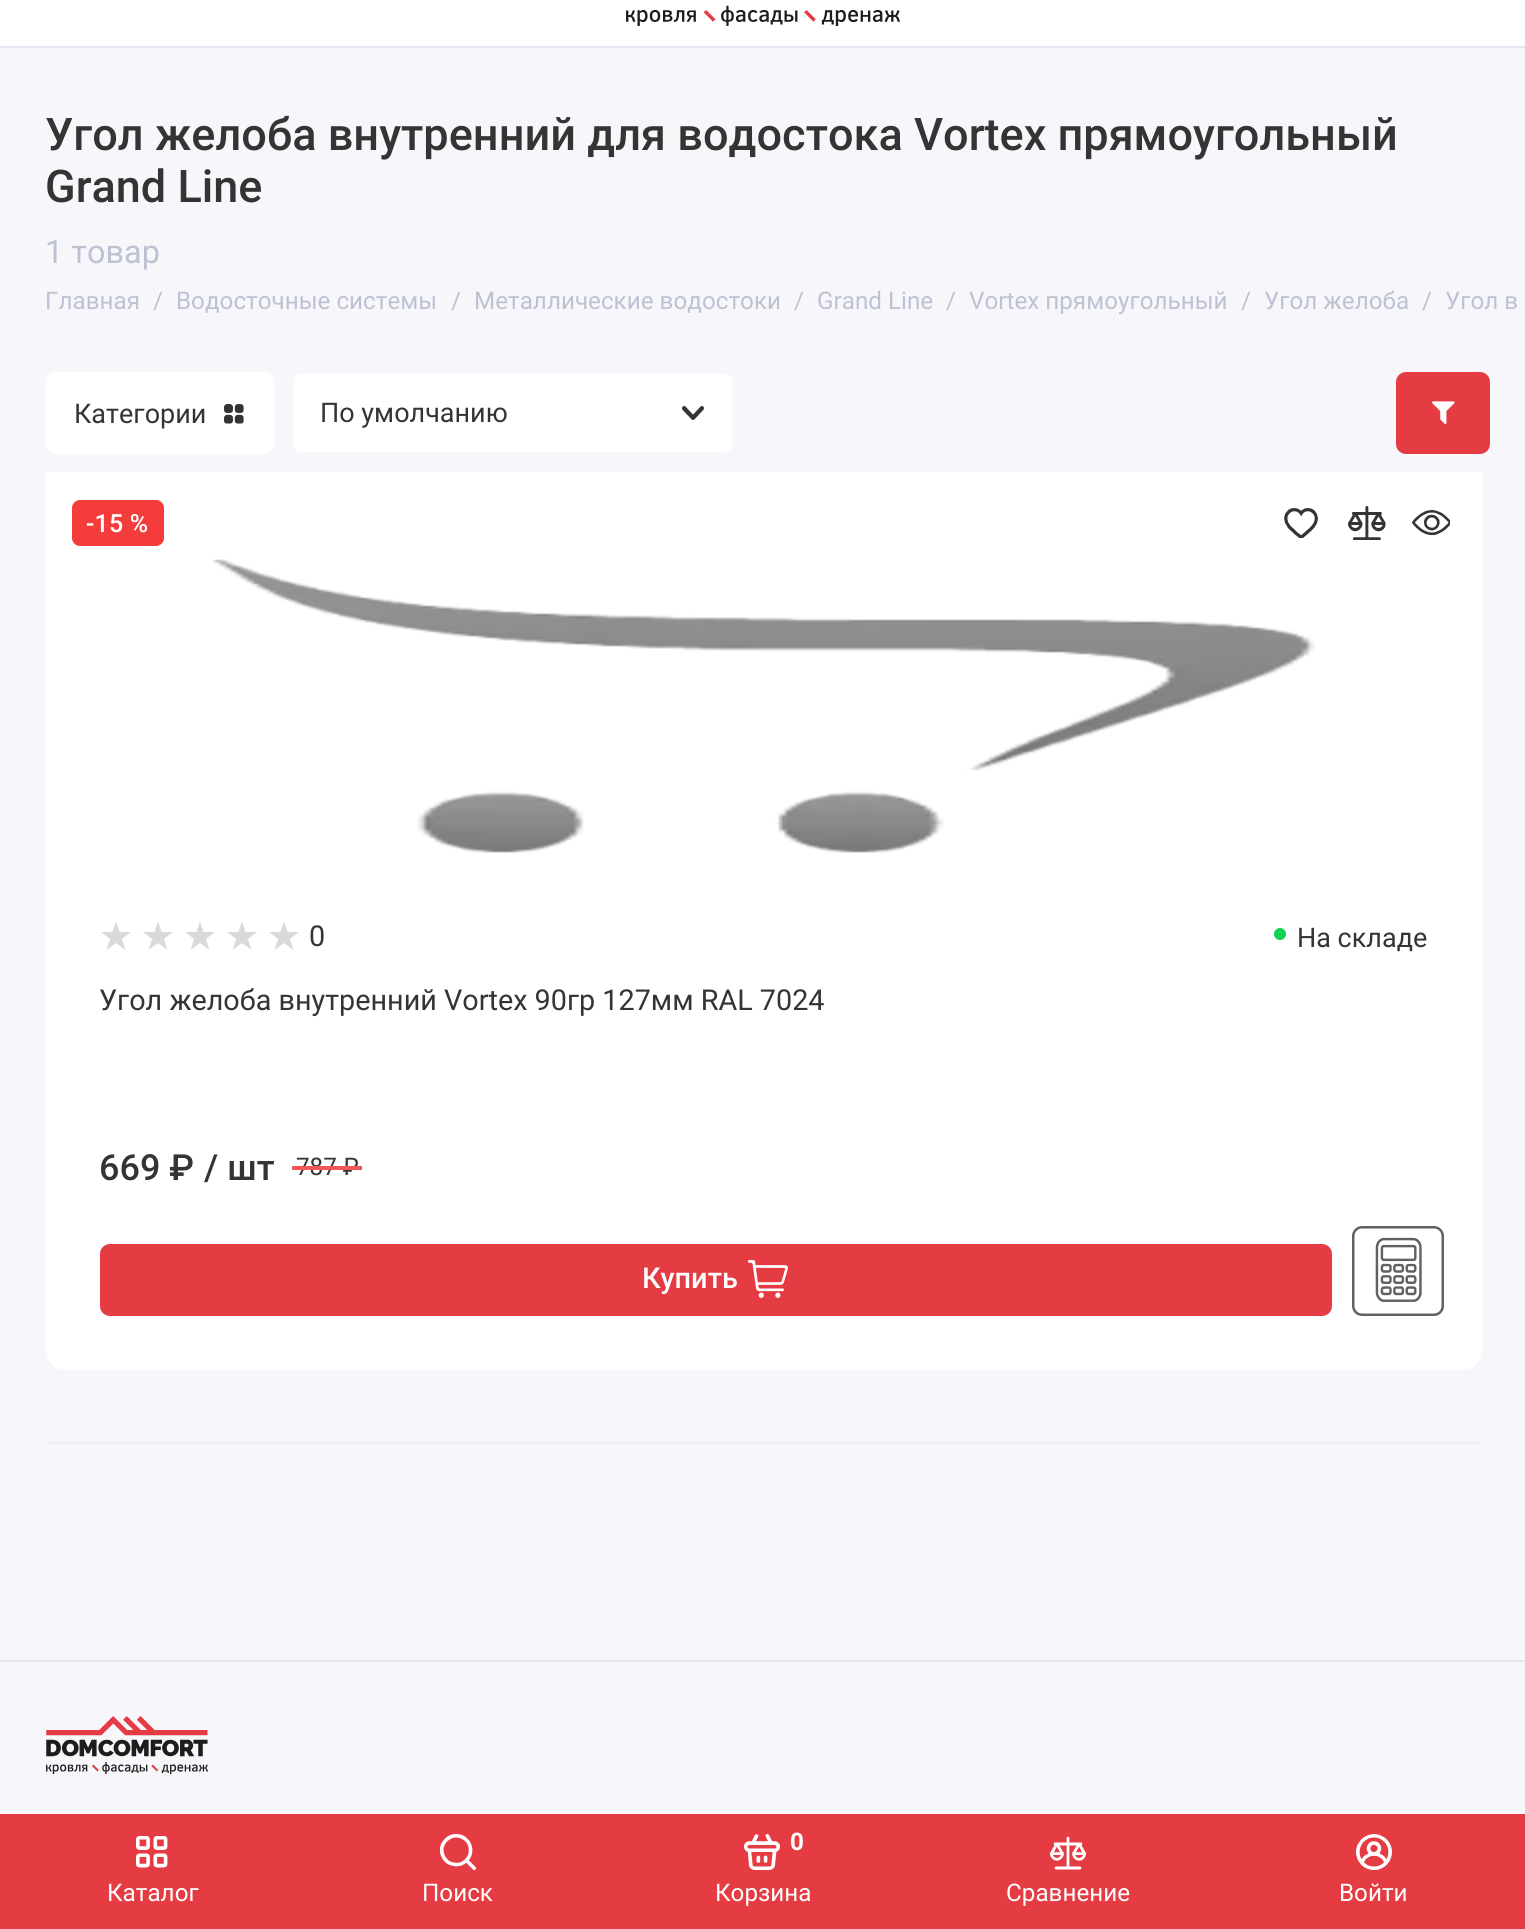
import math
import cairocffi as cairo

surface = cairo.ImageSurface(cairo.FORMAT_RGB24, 1525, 1929)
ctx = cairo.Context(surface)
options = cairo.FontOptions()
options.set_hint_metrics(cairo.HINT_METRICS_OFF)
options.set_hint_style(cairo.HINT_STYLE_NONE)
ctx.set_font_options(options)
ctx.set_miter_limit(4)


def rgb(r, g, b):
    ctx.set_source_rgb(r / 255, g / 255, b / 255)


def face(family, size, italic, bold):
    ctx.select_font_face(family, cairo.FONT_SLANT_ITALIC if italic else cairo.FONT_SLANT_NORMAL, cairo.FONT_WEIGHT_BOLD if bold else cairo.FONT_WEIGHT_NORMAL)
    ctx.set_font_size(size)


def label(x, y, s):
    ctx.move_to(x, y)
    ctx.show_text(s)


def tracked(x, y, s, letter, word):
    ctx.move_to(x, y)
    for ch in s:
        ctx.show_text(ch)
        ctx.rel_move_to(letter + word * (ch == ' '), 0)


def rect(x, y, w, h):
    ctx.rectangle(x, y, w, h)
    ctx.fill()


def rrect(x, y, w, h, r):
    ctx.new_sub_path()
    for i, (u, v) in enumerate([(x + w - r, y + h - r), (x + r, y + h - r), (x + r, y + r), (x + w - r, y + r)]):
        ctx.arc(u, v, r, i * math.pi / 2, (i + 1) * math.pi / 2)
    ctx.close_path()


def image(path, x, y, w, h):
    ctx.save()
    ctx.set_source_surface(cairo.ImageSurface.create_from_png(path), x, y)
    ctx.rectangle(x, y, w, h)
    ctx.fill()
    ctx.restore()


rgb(247, 247, 251)
ctx.paint()
face('Roboto Medium', 45, 0, 0)
rgb(52, 52, 52)
label(45, 150, 'Угол желоба внутренний для водостока Vortex прямоугольный')
label(45, 202, 'Grand Line')
face('Roboto', 32.5, 0, 0)
rgb(189, 194, 211)
label(45, 263, '1 товар')
face('Roboto', 24.25, 0, 0)
label(45, 309, 'Главная')
label(153, 309, '/')
label(176, 309, 'Водосточные системы')
label(451, 309, '/')
label(474, 309, 'Металлические водостоки')
label(794, 309, '/')
label(817, 309, 'Grand Line')
label(946, 309, '/')
label(969, 309, 'Vortex прямоугольный')
label(1241, 309, '/')
label(1264, 309, 'Угол желоба')
label(1422, 309, '/')
label(1445, 309, 'Угол в')
rgb(255, 255, 255)
rrect(46, 372, 228, 82, 10)
ctx.fill()
face('Roboto', 27, 0, 0)
rgb(52, 52, 52)
label(74, 423, 'Категории')
image('image0.png', 224, 404, 20, 20)
rgb(255, 255, 255)
rrect(292, 372, 442, 82, 10)
ctx.fill()
image('image1.png', 682, 406, 22, 14)
rrect(293, 373, 440, 80, 9)
rgb(247, 248, 251)
ctx.stroke()
rgb(52, 52, 52)
label(320, 422, 'По умолчанию')
rgb(229, 60, 68)
rrect(1396, 372, 94, 82, 10)
ctx.fill()
image('image2.png', 1432, 401, 23, 23)
rgb(255, 255, 255)
rrect(46, 472, 1436, 898, 20)
ctx.fill()
rect(46, 472, 1436, 17)
image('image3.png', 213, 559, 1102, 294)
rgb(245, 60, 60)
rrect(72, 500, 92, 46, 8)
ctx.fill()
face('Roboto Medium', 25, 0, 0)
rgb(255, 255, 255)
tracked(86, 532, '-15 %', 0.25, 0)
image('image4.png', 1284, 508, 34, 30)
image('image5.png', 1348, 506, 38, 34)
image('image6.png', 1412, 510, 38, 26)
rgb(218, 218, 218)
ctx.new_path()
ctx.move_to(116, 921)
ctx.line_to(119.5, 932)
ctx.line_to(131, 932)
ctx.line_to(122, 939)
ctx.line_to(125.5, 950)
ctx.line_to(116, 943)
ctx.line_to(106.5, 950)
ctx.line_to(110, 939)
ctx.line_to(101, 932)
ctx.line_to(112.5, 932)
ctx.close_path()
ctx.fill()
ctx.new_path()
ctx.move_to(158, 921)
ctx.line_to(161.5, 932)
ctx.line_to(173, 932)
ctx.line_to(164, 939)
ctx.line_to(167.5, 950)
ctx.line_to(158, 943)
ctx.line_to(148.5, 950)
ctx.line_to(152, 939)
ctx.line_to(143, 932)
ctx.line_to(154.5, 932)
ctx.close_path()
ctx.fill()
ctx.new_path()
ctx.move_to(200, 921)
ctx.line_to(203.5, 932)
ctx.line_to(215, 932)
ctx.line_to(206, 939)
ctx.line_to(209.5, 950)
ctx.line_to(200, 943)
ctx.line_to(190.5, 950)
ctx.line_to(194, 939)
ctx.line_to(185, 932)
ctx.line_to(196.5, 932)
ctx.close_path()
ctx.fill()
ctx.new_path()
ctx.move_to(242, 921)
ctx.line_to(245.5, 932)
ctx.line_to(257, 932)
ctx.line_to(248, 939)
ctx.line_to(251.5, 950)
ctx.line_to(242, 943)
ctx.line_to(232.5, 950)
ctx.line_to(236, 939)
ctx.line_to(227, 932)
ctx.line_to(238.5, 932)
ctx.close_path()
ctx.fill()
ctx.new_path()
ctx.move_to(284, 921)
ctx.line_to(287.5, 932)
ctx.line_to(299, 932)
ctx.line_to(290, 939)
ctx.line_to(293.5, 950)
ctx.line_to(284, 943)
ctx.line_to(274.5, 950)
ctx.line_to(278, 939)
ctx.line_to(269, 932)
ctx.line_to(280.5, 932)
ctx.close_path()
ctx.fill()
face('Roboto', 28.8, 0, 0)
rgb(52, 52, 52)
label(309, 946, '0')
rgb(19, 209, 84)
ctx.new_path()
ctx.arc(1280, 934, 6, 0, 2 * math.pi)
ctx.fill()
face('Roboto', 27, 0, 0)
rgb(52, 52, 52)
label(1297, 947, 'На складе')
face('Roboto', 28.8, 0, 0)
label(99, 1010, 'Угол желоба внутренний Vortex 90гр 127мм RAL 7024')
face('Roboto Medium', 36, 0, 0)
label(99, 1180, '669 ₽')
label(204, 1180, '/ шт')
face('Roboto', 24.25, 0, 0)
label(296, 1175, '787 ₽')
rgb(244, 86, 86)
rect(292, 1166, 70, 4)
rgb(229, 60, 68)
rrect(100, 1244, 1232, 72, 10)
ctx.fill()
face('Roboto Medium', 28.8, 0, 0)
rgb(255, 255, 255)
label(642, 1288, 'Купить')
image('image7.png', 748, 1260, 40, 38)
image('image8.png', 1352, 1226, 92, 90)
rgb(237, 237, 243)
rect(46, 1442, 1436, 2)
rgb(228, 231, 241)
rect(0, 1660, 1525, 2)
image('image9.png', 46, 1716, 162, 58)
rgb(255, 255, 255)
rect(0, 0, 1525, 46)
rgb(228, 231, 241)
rect(0, 46, 1525, 2)
image('image10.png', 626, 5, 274, 21)
rgb(229, 60, 68)
rect(0, 1814, 1525, 115)
image('image11.png', 136, 1836, 32, 32)
face('Roboto', 24.25, 0, 0)
rgb(255, 255, 255)
label(107, 1901, 'Каталог')
image('image12.png', 440, 1834, 36, 36)
label(422, 1901, 'Поиск')
image('image13.png', 744, 1834, 36, 36)
face('Roboto', 24.25, 0, 1)
label(790, 1850, '0')
face('Roboto', 24.25, 0, 0)
label(715, 1901, 'Корзина')
image('image14.png', 1050, 1836, 36, 34)
label(1006, 1901, 'Сравнение')
image('image15.png', 1356, 1834, 36, 36)
label(1339, 1901, 'Войти')
surface.write_to_png('render.png')
